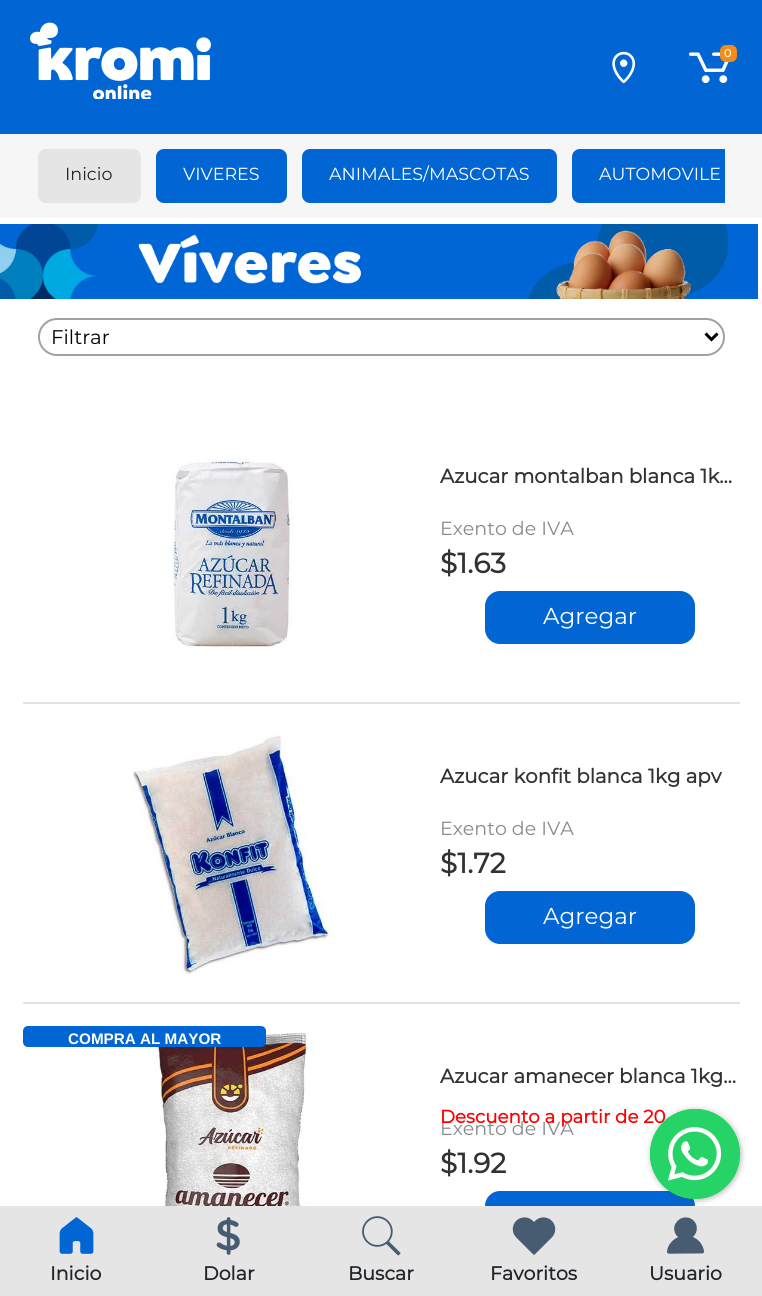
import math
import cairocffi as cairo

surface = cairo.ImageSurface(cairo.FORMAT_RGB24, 762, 1296)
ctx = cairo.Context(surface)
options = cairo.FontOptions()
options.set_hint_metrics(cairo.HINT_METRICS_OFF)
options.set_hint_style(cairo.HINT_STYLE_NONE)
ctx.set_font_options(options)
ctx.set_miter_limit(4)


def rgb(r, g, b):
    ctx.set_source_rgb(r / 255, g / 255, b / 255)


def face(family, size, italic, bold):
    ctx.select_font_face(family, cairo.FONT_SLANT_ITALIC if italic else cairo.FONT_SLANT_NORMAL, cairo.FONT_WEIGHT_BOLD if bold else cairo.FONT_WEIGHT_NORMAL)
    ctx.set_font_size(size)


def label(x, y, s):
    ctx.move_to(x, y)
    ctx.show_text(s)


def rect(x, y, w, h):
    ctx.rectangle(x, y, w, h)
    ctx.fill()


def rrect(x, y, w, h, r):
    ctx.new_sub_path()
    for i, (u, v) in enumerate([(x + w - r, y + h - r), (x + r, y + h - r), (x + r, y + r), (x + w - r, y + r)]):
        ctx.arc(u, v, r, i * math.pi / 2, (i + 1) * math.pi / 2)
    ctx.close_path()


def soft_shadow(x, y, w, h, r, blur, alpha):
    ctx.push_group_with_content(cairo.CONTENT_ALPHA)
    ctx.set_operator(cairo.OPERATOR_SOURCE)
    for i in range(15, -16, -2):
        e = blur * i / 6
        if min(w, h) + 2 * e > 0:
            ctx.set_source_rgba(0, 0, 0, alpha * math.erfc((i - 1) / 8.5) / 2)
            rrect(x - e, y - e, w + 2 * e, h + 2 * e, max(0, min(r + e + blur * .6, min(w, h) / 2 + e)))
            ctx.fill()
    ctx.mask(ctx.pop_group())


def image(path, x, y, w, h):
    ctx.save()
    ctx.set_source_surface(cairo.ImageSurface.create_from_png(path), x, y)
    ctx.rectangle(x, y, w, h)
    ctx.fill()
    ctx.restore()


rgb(255, 255, 255)
ctx.paint()
rgb(1, 102, 211)
rect(0, 0, 762, 134)
image('image0.png', 30, 22, 181, 77)
image('image1.png', 612, 51, 24, 33)
image('image2.png', 689, 52, 40, 32)
rgb(243, 141, 24)
rrect(720, 45, 17, 17, 6)
ctx.fill()
face('Montserrat', 11, 0, 1)
rgb(255, 255, 255)
label(724, 57, '0')
rgb(246, 246, 246)
rect(0, 134, 762, 84)
rgb(229, 229, 229)
rrect(38, 149, 103, 54, 8)
ctx.fill()
face('Montserrat', 17.5, 0, 0)
rgb(33, 37, 41)
label(65, 180, 'Inicio')
rgb(1, 102, 211)
rrect(156, 149, 131, 54, 8)
ctx.fill()
rgb(255, 255, 255)
label(183, 180, 'VIVERES')
rgb(1, 102, 211)
rrect(302, 149, 255, 54, 8)
ctx.fill()
rgb(255, 255, 255)
label(329, 180, 'ANIMALES/MASCOTAS')
rgb(1, 102, 211)
ctx.new_path()
ctx.move_to(580, 149)
ctx.line_to(725, 149)
ctx.line_to(725, 203)
ctx.line_to(580, 203)
ctx.curve_to(575.5, 203, 572, 199.5, 572, 195)
ctx.line_to(572, 157)
ctx.curve_to(572, 152.5, 575.5, 149, 580, 149)
ctx.close_path()
ctx.fill()
rgb(255, 255, 255)
label(599, 180, 'AUTOMOVILE')
image('image3.png', 0, 224, 758, 75)
rrect(39, 319, 685, 36, 18)
rgb(161, 161, 161)
ctx.stroke()
ctx.new_path()
ctx.move_to(705.5, 333.5)
ctx.line_to(711.5, 339.5)
ctx.line_to(717.5, 333.5)
rgb(0, 0, 0)
ctx.set_line_width(3)
ctx.stroke()
face('Montserrat', 19.75, 0, 0)
label(51, 344, 'Filtrar')
rgb(226, 226, 226)
rect(23, 702, 717, 2)
image('image4.png', 172, 457, 121, 192)
face('Montserrat', 19.75, 0, 1)
rgb(50, 50, 50)
label(440, 483, 'Azucar montalban blanca 1k…')
face('Montserrat', 19, 0, 0)
rgb(137, 137, 137)
label(440, 535, 'Exento de IVA')
face('Montserrat', 28, 0, 1)
rgb(50, 50, 50)
label(440, 573, '$1.63')
rgb(1, 102, 211)
rrect(485, 591, 210, 53, 15)
ctx.fill()
face('Montserrat', 23, 0, 0)
rgb(255, 255, 255)
label(543, 624, 'Agregar')
rgb(226, 226, 226)
rect(23, 1002, 717, 2)
image('image5.png', 133, 735, 201, 240)
face('Montserrat', 19.75, 0, 1)
rgb(50, 50, 50)
label(440, 783, 'Azucar konfit blanca 1kg apv')
face('Montserrat', 19, 0, 0)
rgb(137, 137, 137)
label(440, 835, 'Exento de IVA')
face('Montserrat', 28, 0, 1)
rgb(50, 50, 50)
label(440, 873, '$1.72')
rgb(1, 102, 211)
rrect(485, 891, 210, 53, 15)
ctx.fill()
face('Montserrat', 23, 0, 0)
rgb(255, 255, 255)
label(543, 924, 'Agregar')
image('image6.png', 155, 1033, 159, 173)
rgb(1, 102, 211)
rrect(23, 1026, 243, 21, 5)
ctx.fill()
face('Liberation Sans', 15.25, 0, 1)
rgb(255, 255, 255)
label(68, 1044, 'COMPRA AL MAYOR')
face('Montserrat', 19.75, 0, 1)
rgb(50, 50, 50)
label(440, 1083, 'Azucar amanecer blanca 1kg…')
face('Montserrat', 19, 0, 0)
rgb(137, 137, 137)
label(440, 1135, 'Exento de IVA')
face('Montserrat', 18.25, 0, 1)
rgb(255, 0, 0)
label(440, 1123, 'Descuento a partir de 20')
face('Montserrat', 28, 0, 1)
rgb(50, 50, 50)
label(440, 1173, '$1.92')
rgb(1, 102, 211)
rrect(485, 1191, 210, 53, 15)
ctx.fill()
rgb(60, 60, 60)
soft_shadow(651, 1110, 90, 90, 45, 3, 0.4)
rgb(37, 211, 102)
ctx.arc(695, 1154, 45, 0, 2 * math.pi)
ctx.fill()
image('image7.png', 650, 1109, 90, 90)
rgb(229, 229, 229)
rect(0, 1206, 762, 90)
image('image8.png', 59, 1217, 35, 37)
face('Montserrat', 19, 0, 1)
rgb(33, 37, 41)
label(50, 1280, 'Inicio')
image('image9.png', 216, 1217, 24, 38)
label(203, 1280, 'Dolar')
image('image10.png', 362, 1216, 39, 40)
label(348, 1280, 'Buscar')
image('image11.png', 512, 1217, 44, 38)
label(490, 1280, 'Favoritos')
image('image12.png', 667, 1217, 37, 37)
label(649, 1280, 'Usuario')
surface.write_to_png('render.png')
